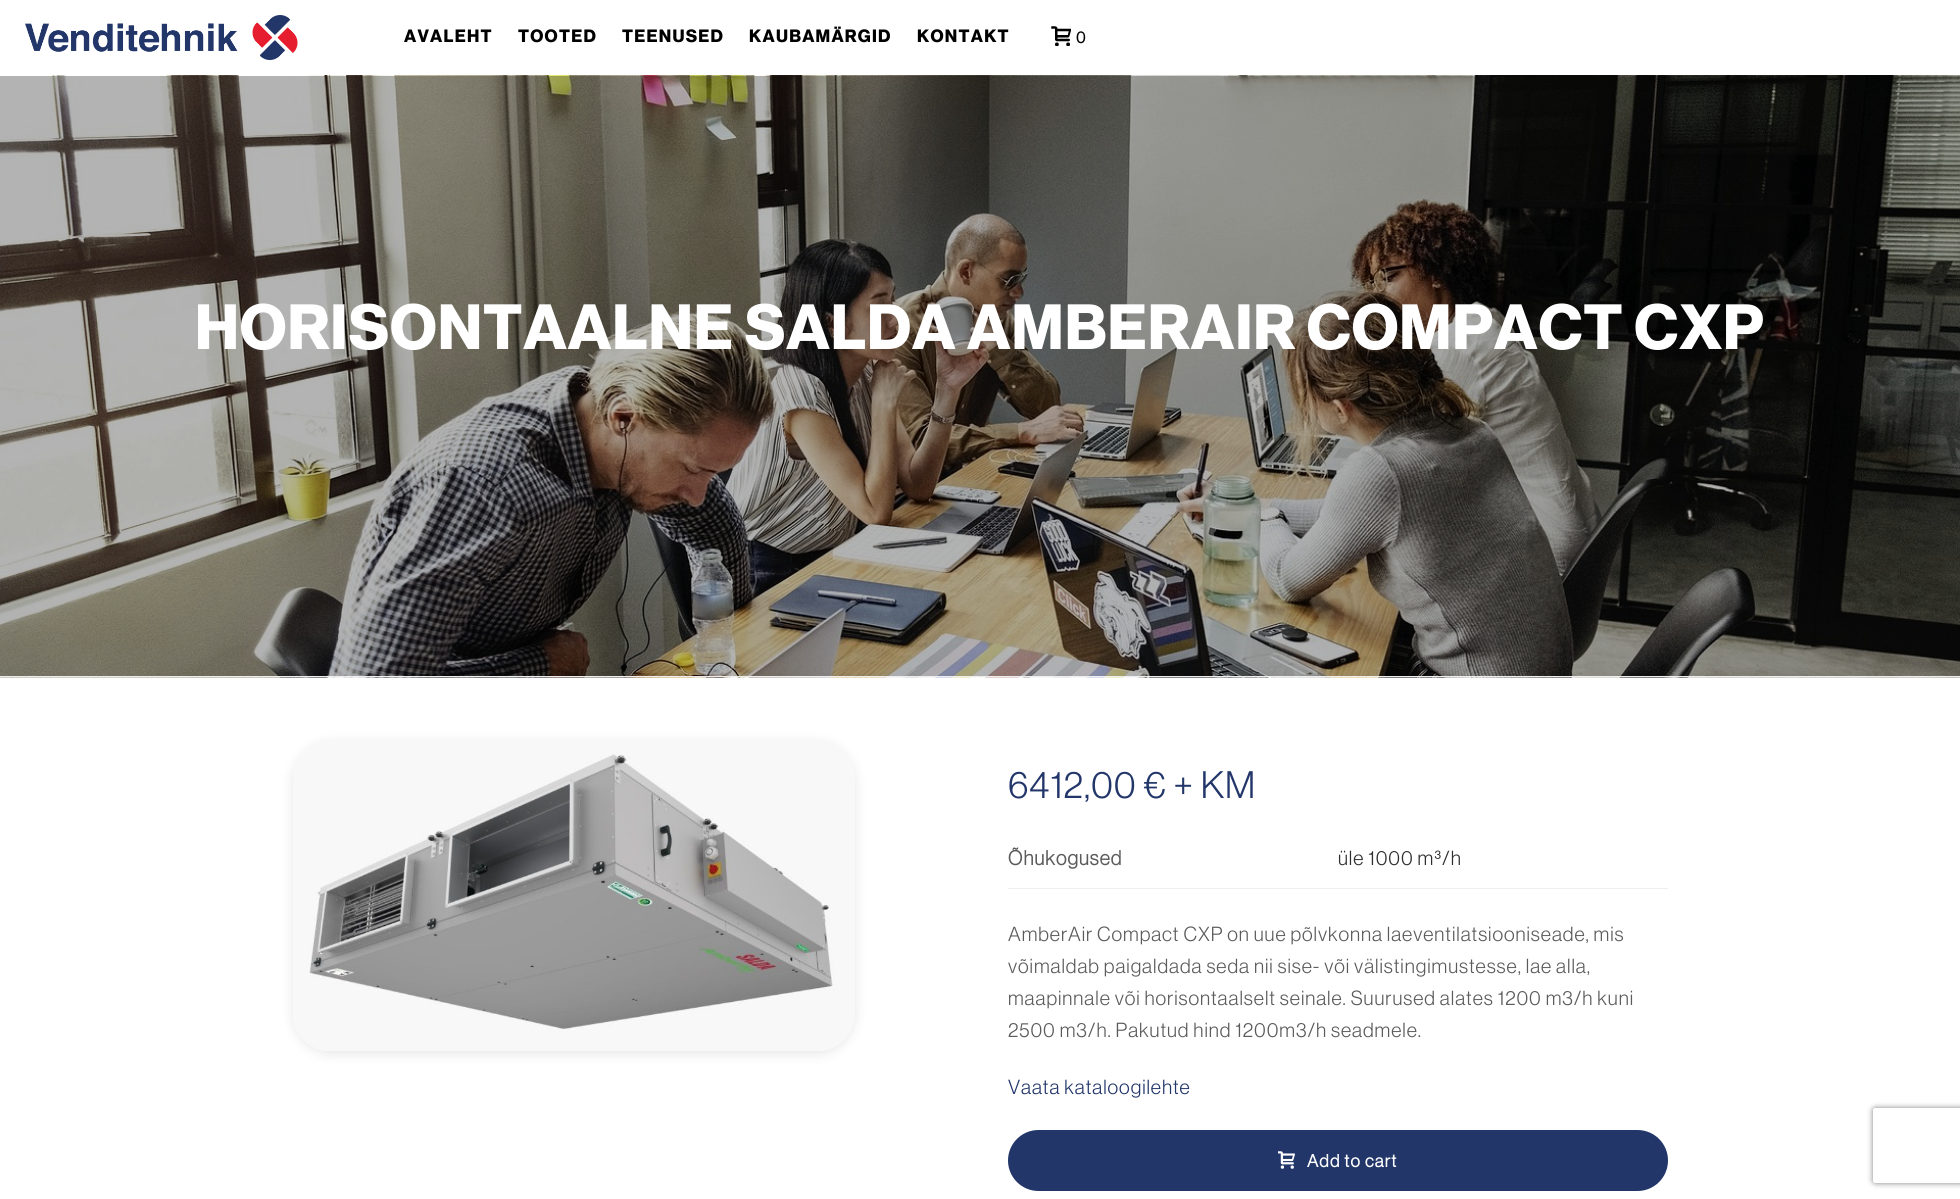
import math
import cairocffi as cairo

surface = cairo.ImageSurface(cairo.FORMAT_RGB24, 1960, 1199)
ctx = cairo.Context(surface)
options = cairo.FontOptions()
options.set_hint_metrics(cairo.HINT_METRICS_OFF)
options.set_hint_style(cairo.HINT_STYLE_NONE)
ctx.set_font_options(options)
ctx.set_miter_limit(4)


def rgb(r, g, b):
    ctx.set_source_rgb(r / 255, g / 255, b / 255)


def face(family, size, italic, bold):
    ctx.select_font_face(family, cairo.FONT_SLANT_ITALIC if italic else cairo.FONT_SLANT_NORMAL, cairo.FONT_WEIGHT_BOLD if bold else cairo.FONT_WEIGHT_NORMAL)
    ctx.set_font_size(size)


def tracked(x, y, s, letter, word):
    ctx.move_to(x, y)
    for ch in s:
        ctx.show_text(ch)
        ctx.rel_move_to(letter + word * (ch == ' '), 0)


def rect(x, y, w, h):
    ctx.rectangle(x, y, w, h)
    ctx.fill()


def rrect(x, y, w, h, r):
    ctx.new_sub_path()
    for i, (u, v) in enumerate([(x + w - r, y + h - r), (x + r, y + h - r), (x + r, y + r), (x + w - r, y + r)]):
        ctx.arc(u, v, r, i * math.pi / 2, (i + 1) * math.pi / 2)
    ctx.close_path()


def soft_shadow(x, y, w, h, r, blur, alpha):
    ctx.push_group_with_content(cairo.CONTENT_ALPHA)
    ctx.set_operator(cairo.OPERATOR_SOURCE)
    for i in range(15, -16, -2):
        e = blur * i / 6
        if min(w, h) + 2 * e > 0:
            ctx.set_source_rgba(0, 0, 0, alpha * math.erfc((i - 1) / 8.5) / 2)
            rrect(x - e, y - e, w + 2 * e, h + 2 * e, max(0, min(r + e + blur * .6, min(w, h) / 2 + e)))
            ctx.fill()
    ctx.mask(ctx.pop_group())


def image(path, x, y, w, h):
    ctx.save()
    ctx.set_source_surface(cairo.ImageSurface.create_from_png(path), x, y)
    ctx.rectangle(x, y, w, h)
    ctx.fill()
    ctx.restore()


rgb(255, 255, 255)
ctx.paint()
rgb(247, 247, 247)
rect(0, 677, 1960, 1)
image('image0.png', 0, 75, 1960, 603)
rgb(237, 237, 237)
rect(0, 676, 1960, 1)
image('image1.png', 25, 15, 273, 45)
face('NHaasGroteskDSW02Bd', 17.5, 0, 1)
rgb(0, 0, 0)
tracked(404, 42, 'AVALEHT', 1.25, 0)
tracked(518, 42, 'TOOTED', 1.25, 0)
tracked(622, 42, 'TEENUSED', 1.25, 0)
tracked(749, 42, 'KAUBAMÄRGID', 1.25, 0)
tracked(917, 42, 'KONTAKT', 1.25, 0)
image('image2.png', 1051, 26, 20, 20)
face('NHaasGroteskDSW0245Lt', 16, 0, 1)
tracked(1076, 43, '0', 0.95, 0)
ctx.set_source_rgba(0, 0, 0, 0.3)
rect(0, 76, 1960, 600)
face('NHaasGroteskDSW02Bd', 62.5, 0, 1)
rgb(255, 255, 255)
tracked(195, 349, 'HORISONTAALNE SALDA AMBERAIR COMPACT CXP', 0.95, 0)
rgb(0, 0, 0)
soft_shadow(293, 743, 562, 311, 38, 6, 0.1)
image('image3.png', 293, 740, 562, 311)
face('NHaasGroteskDSW0245Lt', 37.5, 0, 0)
rgb(34, 54, 106)
tracked(1008, 798, '6412,00 € + KM', 0.95, 0)
face('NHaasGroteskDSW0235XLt', 20, 0, 1)
rgb(91, 91, 91)
tracked(1008, 865, 'Õhukogused', 1.25, 0)
rgb(238, 238, 238)
rect(1008, 888, 660, 1)
face('NHaasGroteskDSW0245Lt', 20, 0, 0)
rgb(46, 46, 46)
tracked(1338, 865, 'üle 1000 m³/h', 0.95, 0)
rgb(91, 91, 91)
tracked(1008, 941, 'AmberAir Compact CXP on uue põlvkonna laeventilatsiooniseade, mis', 0.95, 0)
tracked(1008, 973, 'võimaldab paigaldada seda nii sise- või välistingimustesse, lae alla,', 0.95, 0)
tracked(1008, 1005, 'maapinnale või horisontaalselt seinale. Suurused alates 1200 m3/h kuni', 0.95, 0)
tracked(1008, 1037, '2500 m3/h. Pakutud hind 1200m3/h seadmele.', 0.95, 0)
rgb(34, 54, 106)
tracked(1008, 1094, 'Vaata kataloogilehte', 0.95, 0)
rrect(1008, 1130, 660, 61, 30.5)
ctx.fill()
image('image4.png', 1278, 1151, 17, 18)
face('NHaasGroteskDSW0245Lt', 17.5, 0, 1)
rgb(255, 255, 255)
tracked(1307, 1167, 'Add to cart', 1.25, 0)
ctx.save()
ctx.set_fill_rule(cairo.FILL_RULE_EVEN_ODD)
ctx.new_path()
ctx.move_to(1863, 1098)
ctx.line_to(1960, 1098)
ctx.line_to(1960, 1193)
ctx.line_to(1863, 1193)
ctx.close_path()
ctx.move_to(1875.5, 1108)
ctx.line_to(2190.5, 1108)
ctx.curve_to(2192, 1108, 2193, 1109, 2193, 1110.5)
ctx.line_to(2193, 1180.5)
ctx.curve_to(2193, 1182, 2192, 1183, 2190.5, 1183)
ctx.line_to(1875.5, 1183)
ctx.curve_to(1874, 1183, 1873, 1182, 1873, 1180.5)
ctx.line_to(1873, 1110.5)
ctx.curve_to(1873, 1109, 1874, 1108, 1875.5, 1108)
ctx.close_path()
ctx.clip()
rgb(128, 128, 128)
soft_shadow(1873, 1108, 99, 75, 2.5, 3, 1)
ctx.restore()
surface.write_to_png('render.png')
